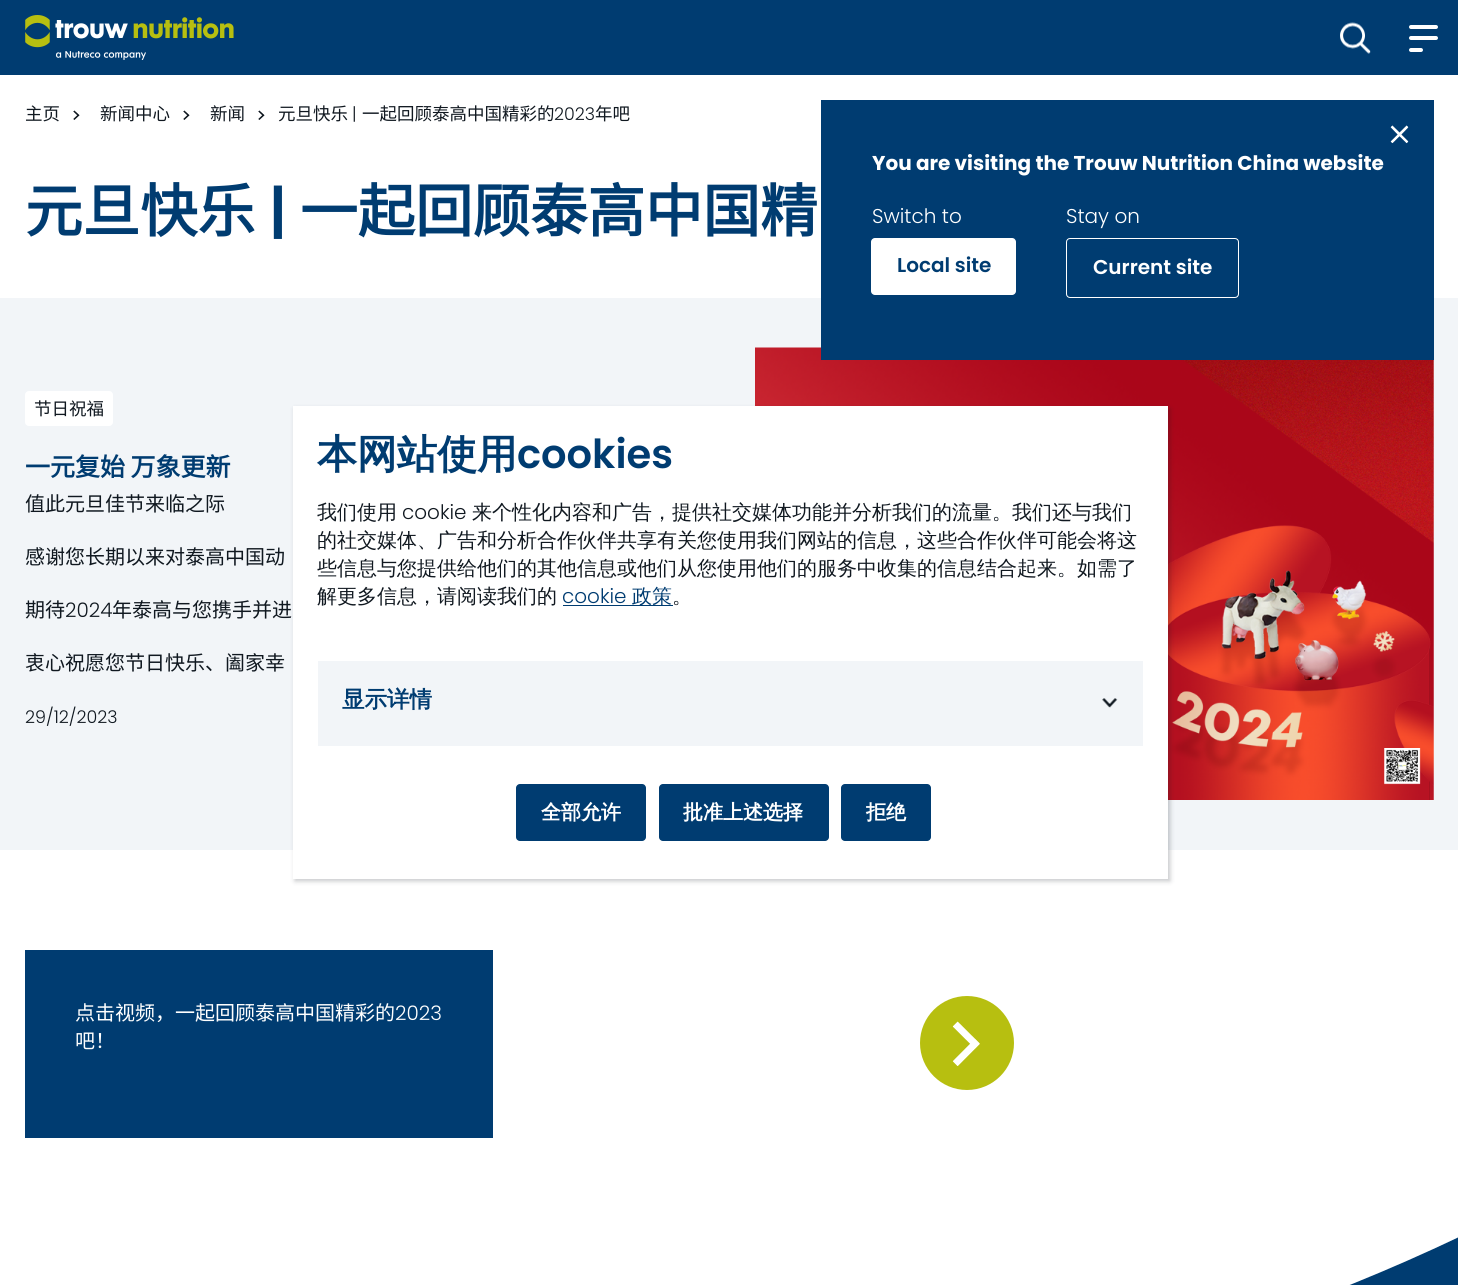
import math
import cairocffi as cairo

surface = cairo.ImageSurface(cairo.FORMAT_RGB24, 1458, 1285)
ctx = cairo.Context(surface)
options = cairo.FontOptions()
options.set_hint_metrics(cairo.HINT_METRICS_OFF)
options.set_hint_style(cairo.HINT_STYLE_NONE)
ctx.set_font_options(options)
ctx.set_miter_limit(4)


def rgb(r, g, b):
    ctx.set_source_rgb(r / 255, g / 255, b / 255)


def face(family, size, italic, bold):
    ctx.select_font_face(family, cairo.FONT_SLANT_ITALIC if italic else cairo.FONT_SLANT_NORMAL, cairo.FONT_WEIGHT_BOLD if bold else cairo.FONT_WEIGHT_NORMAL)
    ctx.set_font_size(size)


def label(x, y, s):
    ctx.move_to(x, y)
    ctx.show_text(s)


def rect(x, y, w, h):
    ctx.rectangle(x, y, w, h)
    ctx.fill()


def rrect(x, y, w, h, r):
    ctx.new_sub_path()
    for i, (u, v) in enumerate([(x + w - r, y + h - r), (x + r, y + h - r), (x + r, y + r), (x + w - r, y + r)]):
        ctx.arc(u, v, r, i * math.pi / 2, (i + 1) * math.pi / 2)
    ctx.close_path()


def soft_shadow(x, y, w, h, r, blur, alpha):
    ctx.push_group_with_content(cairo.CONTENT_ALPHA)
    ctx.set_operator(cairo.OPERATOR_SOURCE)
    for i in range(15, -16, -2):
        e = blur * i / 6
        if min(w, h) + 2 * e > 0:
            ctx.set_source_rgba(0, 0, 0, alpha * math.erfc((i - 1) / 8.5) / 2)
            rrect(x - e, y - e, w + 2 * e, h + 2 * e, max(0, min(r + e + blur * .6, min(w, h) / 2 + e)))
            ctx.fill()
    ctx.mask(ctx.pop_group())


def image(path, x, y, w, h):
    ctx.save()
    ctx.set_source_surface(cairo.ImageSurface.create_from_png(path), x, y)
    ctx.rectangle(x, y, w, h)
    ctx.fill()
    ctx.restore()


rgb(255, 255, 255)
ctx.paint()
rgb(0, 60, 113)
rect(0, 0, 1458, 75)
image('image0.png', 25, 15, 209, 45)
image('image1.png', 1340, 22, 31, 32)
rgb(255, 255, 255)
rrect(1409, 25, 29, 4, 2)
ctx.fill()
rrect(1409, 36, 29, 4, 2)
ctx.fill()
rrect(1409, 48, 14, 4, 2)
ctx.fill()
face('Noto Sans CJK SC', 17.5, 0, 0)
rgb(16, 24, 32)
label(25, 120, '主页')
image('image2.png', 73, 110, 7, 10)
label(100, 120, '新闻中心')
image('image2.png', 183, 110, 7, 10)
label(210, 120, '新闻')
image('image2.png', 258, 110, 7, 10)
label(278, 120, '元旦快乐')
face('Poppins Light', 17.5, 0, 0)
label(352, 120, '|')
face('Noto Sans CJK SC', 17.5, 0, 0)
label(362, 120, '一起回顾泰高中国精彩的')
face('Poppins Light', 17.5, 0, 0)
label(554, 120, '2023')
face('Noto Sans CJK SC', 17.5, 0, 0)
label(595, 120, '年吧')
face('Noto Sans CJK SC', 57.5, 0, 1)
rgb(0, 60, 113)
label(25, 232, '元旦快乐')
face('Poppins SemiBold', 57.5, 0, 0)
label(269, 232, '|')
face('Noto Sans CJK SC', 57.5, 0, 1)
label(300, 232, '一起回顾泰高中国精')
rgb(242, 245, 248)
rect(0, 298, 1458, 552)
image('image4.png', 755, 347, 679, 453)
rgb(0, 60, 113)
rect(821, 100, 613, 260)
image('image3.png', 1390, 125, 19, 19)
face('Poppins', 20, 0, 1)
rgb(255, 255, 255)
label(872, 170, 'You are visiting the Trouw Nutrition China website')
face('Poppins Light', 20, 0, 0)
label(872, 223, 'Switch to')
rrect(871, 238, 145, 57, 4)
ctx.fill()
face('Poppins SemiBold', 20, 0, 0)
rgb(0, 60, 113)
label(897, 272, 'Local site')
face('Poppins Light', 20, 0, 0)
rgb(255, 255, 255)
label(1066, 223, 'Stay on')
rrect(1066.5, 238.5, 172, 59, 3.5)
ctx.set_line_width(1)
ctx.stroke()
face('Poppins SemiBold', 20, 0, 0)
label(1093, 274, 'Current site')
rrect(25, 391, 88, 35, 4)
ctx.fill()
face('Noto Sans CJK SC', 17.5, 0, 0)
rgb(16, 24, 32)
label(34, 415, '节日祝福')
face('Noto Sans CJK SC', 25, 0, 1)
rgb(0, 60, 113)
label(25, 476, '一元复始 万象更新')
face('Noto Sans CJK SC', 20, 0, 0)
rgb(16, 24, 32)
label(25, 511, '值此元旦佳节来临之际')
label(25, 564, '感谢您长期以来对泰高中国动')
label(25, 617, '期待')
face('Poppins Light', 20, 0, 0)
label(65, 617, '2024')
face('Noto Sans CJK SC', 20, 0, 0)
label(112, 617, '年泰高与您携手并进')
label(25, 670, '衷心祝愿您节日快乐、阖家幸')
face('Poppins Light', 17.5, 0, 0)
label(25, 723, '29/12/2023')
rgb(0, 60, 113)
rect(25, 950, 468, 188)
face('Noto Sans CJK SC', 20, 0, 0)
rgb(255, 255, 255)
label(75, 1020, '点击视频，一起回顾泰高中国精彩的')
face('Poppins Light', 20, 0, 0)
label(395, 1020, '2023')
face('Noto Sans CJK SC', 20, 0, 0)
label(75, 1048, '吧！')
rgb(183, 191, 16)
ctx.new_path()
ctx.arc(967, 1043, 47, 0, 2 * math.pi)
ctx.fill()
image('image5.png', 952, 1021, 28, 45)
rgb(16, 24, 32)
soft_shadow(295, 409, 875, 472, 0, 2.5, 0.25)
rgb(255, 255, 255)
rect(293, 406, 875, 473)
face('WenQuanYi Zen Hei', 40, 0, 1)
rgb(0, 60, 113)
label(317, 468, '本网站使用')
face('Poppins SemiBold', 40, 0, 0)
label(517, 468, 'cookies')
face('WenQuanYi Zen Hei Medium', 20, 0, 0)
rgb(16, 24, 32)
label(317, 519, '我们使用')
face('Poppins Light', 20, 0, 0)
label(402, 519, 'cookie')
face('WenQuanYi Zen Hei Medium', 20, 0, 0)
label(472, 519, '来个性化内容和广告，提供社交媒体功能并分析我们的流量。我们还与我们')
label(317, 547, '的社交媒体、广告和分析合作伙伴共享有关您使用我们网站的信息，这些合作伙伴可能会将这')
label(317, 575, '些信息与您提供给他们的其他信息或他们从您使用他们的服务中收集的信息结合起来。如需了')
label(317, 603, '解更多信息，请阅读我们的')
face('Poppins Light', 20, 0, 0)
rgb(0, 60, 113)
label(562, 603, 'cookie')
rect(563, 605, 110, 1)
face('WenQuanYi Zen Hei Medium', 20, 0, 0)
label(632, 603, '政策')
rgb(16, 24, 32)
label(672, 603, '。')
rgb(242, 245, 248)
rect(318, 661, 825, 85)
face('WenQuanYi Zen Hei', 22.5, 0, 1)
rgb(0, 60, 113)
label(342, 707, '显示详情')
image('image6.png', 1102, 698, 16, 10)
rrect(516, 784, 130, 57, 4)
ctx.fill()
face('WenQuanYi Zen Hei', 20, 0, 1)
rgb(255, 255, 255)
label(541, 819, '全部允许')
rgb(0, 60, 113)
rrect(659, 784, 170, 57, 4)
ctx.fill()
rgb(255, 255, 255)
label(683, 819, '批准上述选择')
rgb(0, 60, 113)
rrect(841, 784, 90, 57, 4)
ctx.fill()
rgb(255, 255, 255)
label(866, 819, '拒绝')
rgb(0, 60, 113)
ctx.set_fill_rule(cairo.FILL_RULE_EVEN_ODD)
ctx.new_path()
ctx.move_to(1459, 1237)
ctx.line_to(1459, 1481)
ctx.line_to(0, 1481)
ctx.line_to(0, 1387)
ctx.curve_to(161, 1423, 331, 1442, 507, 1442)
ctx.curve_to(858, 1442, 1184, 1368, 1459, 1237)
ctx.close_path()
ctx.move_to(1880, 953)
ctx.line_to(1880, 953)
ctx.close_path()
ctx.fill()
surface.write_to_png('render.png')
